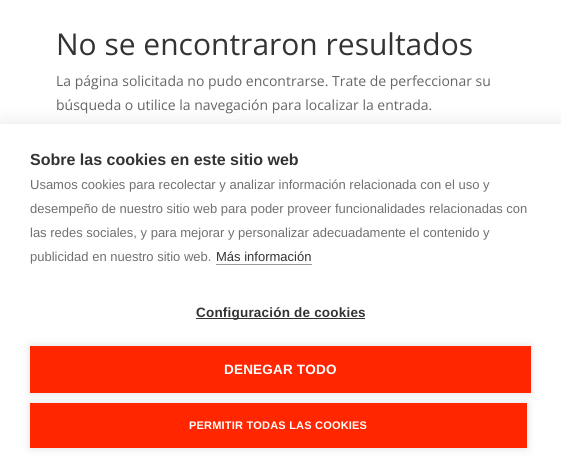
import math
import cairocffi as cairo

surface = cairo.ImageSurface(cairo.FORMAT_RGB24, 561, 473)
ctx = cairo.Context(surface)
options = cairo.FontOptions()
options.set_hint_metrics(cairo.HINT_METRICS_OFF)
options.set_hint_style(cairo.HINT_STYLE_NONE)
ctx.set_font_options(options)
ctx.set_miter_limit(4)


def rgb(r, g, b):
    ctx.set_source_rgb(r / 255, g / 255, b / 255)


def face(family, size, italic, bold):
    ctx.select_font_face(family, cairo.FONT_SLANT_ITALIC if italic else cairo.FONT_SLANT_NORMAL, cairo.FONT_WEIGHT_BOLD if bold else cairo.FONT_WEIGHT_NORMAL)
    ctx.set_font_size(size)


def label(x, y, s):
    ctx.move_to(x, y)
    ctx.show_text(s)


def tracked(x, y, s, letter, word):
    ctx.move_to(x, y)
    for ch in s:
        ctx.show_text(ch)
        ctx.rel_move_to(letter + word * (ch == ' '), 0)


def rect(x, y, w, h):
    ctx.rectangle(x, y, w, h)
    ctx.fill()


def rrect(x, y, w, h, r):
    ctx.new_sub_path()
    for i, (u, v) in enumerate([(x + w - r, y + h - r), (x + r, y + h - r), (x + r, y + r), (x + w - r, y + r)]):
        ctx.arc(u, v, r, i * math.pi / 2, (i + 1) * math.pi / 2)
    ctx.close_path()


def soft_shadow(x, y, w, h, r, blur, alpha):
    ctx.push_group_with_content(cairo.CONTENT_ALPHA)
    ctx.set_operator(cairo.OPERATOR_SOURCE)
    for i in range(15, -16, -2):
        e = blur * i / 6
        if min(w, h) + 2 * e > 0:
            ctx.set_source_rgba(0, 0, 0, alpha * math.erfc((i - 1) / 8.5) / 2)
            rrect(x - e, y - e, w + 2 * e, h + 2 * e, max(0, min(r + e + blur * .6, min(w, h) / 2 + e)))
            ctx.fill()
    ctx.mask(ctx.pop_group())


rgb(255, 255, 255)
ctx.paint()
face('Open Sans', 30, 0, 0)
rgb(51, 51, 51)
label(56, 55, 'No se encontraron resultados')
face('Open Sans', 14, 0, 0)
rgb(102, 102, 102)
label(56, 86, 'La página solicitada no pudo encontrarse. Trate de perfeccionar su')
label(56, 110, 'búsqueda o utilice la navegación para localizar la entrada.')
rgb(0, 0, 0)
soft_shadow(0, 124, 561, 349, 0, 10, 0.1)
rgb(255, 255, 255)
rect(0, 124, 561, 349)
face('Liberation Sans', 16, 0, 1)
rgb(51, 51, 51)
label(30, 165, 'Sobre las cookies en este sitio web')
face('Liberation Sans', 13, 0, 0)
rgb(112, 112, 112)
label(30, 189, 'Usamos cookies para recolectar y analizar información relacionada con el uso y')
label(30, 213, 'desempeño de nuestro sitio web para poder proveer funcionalidades relacionadas con')
label(30, 237, 'las redes sociales, y para mejorar y personalizar adecuadamente el contenido y')
label(30, 261, 'publicidad en nuestro sitio web.')
rgb(51, 51, 51)
label(216, 261, 'Más información')
rgb(153, 153, 153)
rect(216, 264, 96, 1)
rgb(51, 51, 51)
rect(196, 318, 169, 1)
face('Liberation Sans', 13.5, 0, 1)
tracked(196, 317, 'Configuración de cookies', 0.2, 0)
rgb(0, 0, 0)
soft_shadow(30, 346, 501, 47, 0, 5, 0.12)
rgb(255, 38, 0)
rect(30, 346, 501, 47)
rgb(255, 255, 255)
tracked(224, 374, 'DENEGAR TODO', 0.2, 0)
rgb(0, 0, 0)
soft_shadow(30, 403, 497, 45, 0, 5, 0.12)
rgb(255, 38, 0)
rect(30, 403, 497, 45)
face('Liberation Sans', 11, 0, 1)
rgb(255, 255, 255)
tracked(189, 429, 'PERMITIR TODAS LAS COOKIES', 0.2, 0)
surface.write_to_png('render.png')
